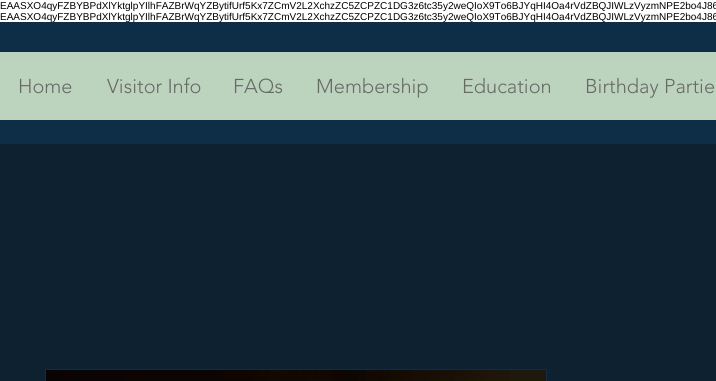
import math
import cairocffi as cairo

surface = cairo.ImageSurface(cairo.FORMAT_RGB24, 716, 381)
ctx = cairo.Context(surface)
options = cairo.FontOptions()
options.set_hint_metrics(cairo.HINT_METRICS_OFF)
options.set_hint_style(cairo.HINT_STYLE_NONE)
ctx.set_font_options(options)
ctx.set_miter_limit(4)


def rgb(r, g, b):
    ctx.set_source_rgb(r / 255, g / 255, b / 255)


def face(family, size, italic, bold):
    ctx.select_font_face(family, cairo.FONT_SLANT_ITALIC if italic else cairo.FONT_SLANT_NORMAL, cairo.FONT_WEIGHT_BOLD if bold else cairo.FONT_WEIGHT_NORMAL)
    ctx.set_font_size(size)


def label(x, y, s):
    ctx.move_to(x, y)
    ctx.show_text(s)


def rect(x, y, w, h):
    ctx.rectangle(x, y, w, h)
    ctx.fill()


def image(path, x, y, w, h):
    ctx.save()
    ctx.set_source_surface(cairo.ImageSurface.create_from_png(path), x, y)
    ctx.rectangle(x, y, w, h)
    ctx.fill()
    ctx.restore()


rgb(255, 255, 255)
ctx.paint()
face('Liberation Sans', 10, 0, 0)
rgb(0, 0, 0)
label(0, 9, 'EAASXO4qyFZBYBPdXlYktglpYIlhFAZBrWqYZBytifUrf5Kx7ZCmV2L2XchzZC5ZCPZC1DG3z6tc35y2weQIoX9To6BJYqHI4Oa4rVdZBQJIWLzVyzmNPE2bo4J86')
label(0, 20, 'EAASXO4qyFZBYBPdXlYktglpYIlhFAZBrWqYZBytifUrf5Kx7ZCmV2L2XchzZC5ZCPZC1DG3z6tc35y2weQIoX9To6BJYqHI4Oa4rVdZBQJIWLzVyzmNPE2bo4J86')
rgb(14, 46, 71)
rect(0, 22, 716, 122)
rgb(188, 212, 189)
rect(0, 52, 716, 68)
face('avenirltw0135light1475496 Light', 20, 0, 0)
rgb(105, 105, 105)
label(18, 93, 'Home')
label(107, 93, 'Visitor Info')
label(233, 93, 'FAQs')
label(316, 93, 'Membership')
label(462, 93, 'Education')
label(585, 93, 'Birthday Partie')
rgb(13, 33, 48)
rect(0, 144, 716, 237)
ctx.rectangle(45.5, 369.5, 501, 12)
rgb(14, 46, 71)
ctx.set_line_width(1)
ctx.stroke()
image('image0.png', 46, 370, 500, 11)
surface.write_to_png('render.png')
